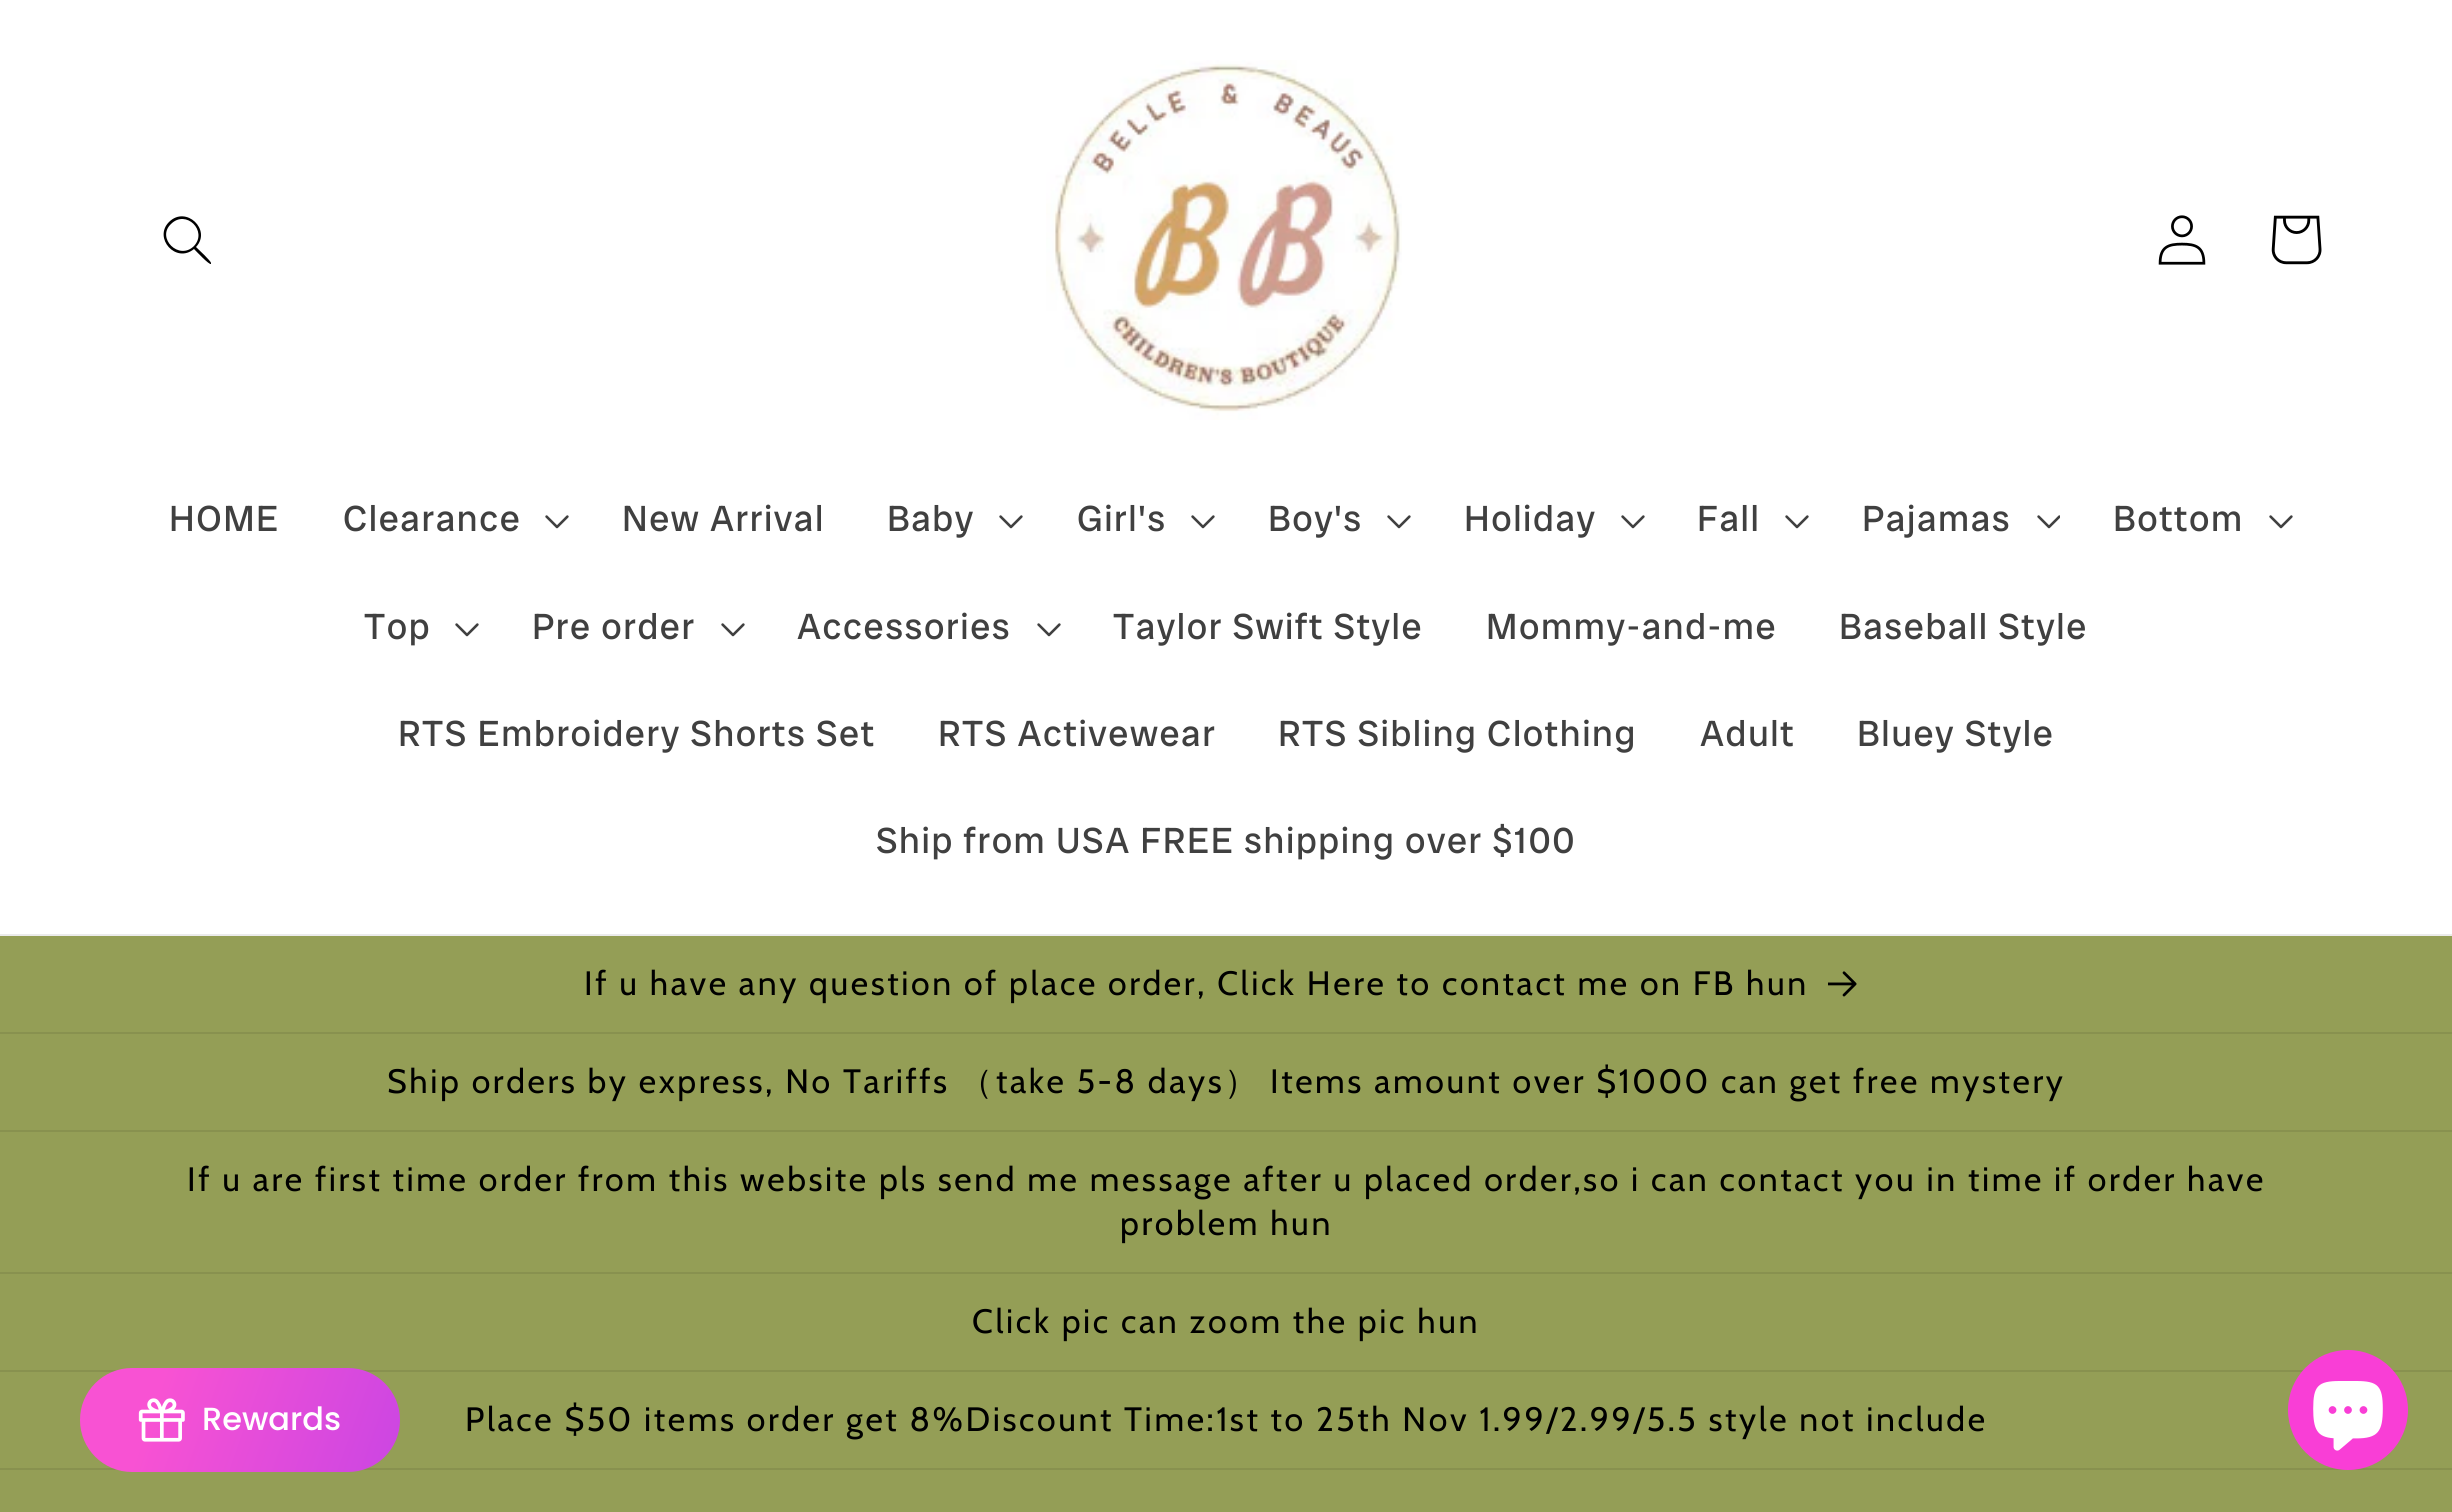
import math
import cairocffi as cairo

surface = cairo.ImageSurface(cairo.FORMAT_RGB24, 2452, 1512)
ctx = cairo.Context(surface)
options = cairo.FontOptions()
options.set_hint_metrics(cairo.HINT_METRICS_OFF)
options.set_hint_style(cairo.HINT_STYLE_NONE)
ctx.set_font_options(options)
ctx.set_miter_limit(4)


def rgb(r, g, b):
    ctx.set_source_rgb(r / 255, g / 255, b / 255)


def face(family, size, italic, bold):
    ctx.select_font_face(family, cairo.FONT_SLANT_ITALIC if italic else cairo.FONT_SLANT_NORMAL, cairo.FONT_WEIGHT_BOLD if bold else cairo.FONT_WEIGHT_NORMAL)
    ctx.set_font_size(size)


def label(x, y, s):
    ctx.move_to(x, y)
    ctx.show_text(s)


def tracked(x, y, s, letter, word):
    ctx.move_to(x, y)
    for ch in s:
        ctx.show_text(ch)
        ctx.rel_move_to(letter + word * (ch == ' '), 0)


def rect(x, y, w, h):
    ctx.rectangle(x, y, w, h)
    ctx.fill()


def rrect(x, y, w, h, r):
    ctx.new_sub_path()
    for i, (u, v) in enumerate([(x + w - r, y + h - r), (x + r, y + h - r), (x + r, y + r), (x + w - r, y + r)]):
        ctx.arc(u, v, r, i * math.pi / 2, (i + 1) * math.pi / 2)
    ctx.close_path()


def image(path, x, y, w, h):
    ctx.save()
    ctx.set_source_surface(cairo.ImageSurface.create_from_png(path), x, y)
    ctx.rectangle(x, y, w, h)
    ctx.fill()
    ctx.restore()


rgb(255, 255, 255)
ctx.paint()
rgb(235, 235, 235)
rect(0, 934, 2452, 2)
rgb(0, 0, 0)
ctx.set_fill_rule(cairo.FILL_RULE_EVEN_ODD)
ctx.new_path()
ctx.move_to(194, 246)
ctx.curve_to(179, 261, 156, 238, 171, 224)
ctx.curve_to(186, 209, 208, 231, 194, 246)
ctx.close_path()
ctx.move_to(194, 249)
ctx.curve_to(176, 264, 153, 238, 169, 222)
ctx.curve_to(186, 205, 212, 230, 196, 247)
ctx.curve_to(198, 249, 211, 261, 211, 263)
ctx.line_to(211, 264)
ctx.curve_to(209, 265, 196, 251, 194, 249)
ctx.close_path()
ctx.fill()
image('image0.png', 1046, 60, 356, 360)
image('image1.png', 2158, 215, 48, 50)
image('image2.png', 2271, 215, 51, 50)
face('Radio Canada Big', 36.4, 0, 0)
rgb(64, 64, 64)
tracked(169, 531, 'HOME', 1.55, 0)
tracked(343, 531, 'Clearance', 1.55, 0)
image('image3.png', 545, 515, 24, 14)
tracked(622, 531, 'New Arrival', 1.55, 0)
tracked(887, 531, 'Baby', 1.55, 0)
image('image3.png', 999, 515, 24, 14)
tracked(1077, 531, 'Girl\'s', 1.55, 0)
image('image3.png', 1191, 515, 24, 14)
tracked(1268, 531, 'Boy\'s', 1.55, 0)
image('image3.png', 1387, 515, 24, 14)
tracked(1464, 531, 'Holiday', 1.55, 0)
image('image3.png', 1621, 515, 24, 14)
tracked(1697, 531, 'Fall', 1.55, 0)
image('image3.png', 1785, 515, 24, 14)
tracked(1862, 531, 'Pajamas', 1.55, 0)
image('image4.png', 2037, 515, 23, 14)
tracked(2113, 531, 'Bottom', 1.55, 0)
image('image3.png', 2269, 515, 24, 14)
tracked(364, 639, 'Top', 1.55, 0)
image('image3.png', 455, 623, 24, 14)
tracked(532, 639, 'Pre order', 1.55, 0)
image('image3.png', 721, 623, 24, 14)
tracked(797, 639, 'Accessories', 1.55, 0)
image('image3.png', 1037, 623, 24, 14)
tracked(1113, 639, 'Taylor Swift Style', 1.55, 0)
tracked(1486, 639, 'Mommy-and-me', 1.55, 0)
tracked(1839, 639, 'Baseball Style', 1.55, 0)
tracked(398, 746, 'RTS Embroidery Shorts Set', 1.55, 0)
tracked(938, 746, 'RTS Activewear', 1.55, 0)
tracked(1278, 746, 'RTS Sibling Clothing', 1.55, 0)
tracked(1700, 746, 'Adult', 1.55, 0)
tracked(1857, 746, 'Bluey Style', 1.55, 0)
tracked(876, 853, 'Ship from USA FREE shipping over $100', 1.55, 0)
rgb(148, 158, 86)
rect(0, 936, 2452, 96)
rgb(136, 145, 79)
rect(0, 1032, 2452, 2)
face('Cabin', 33.8, 0, 0)
rgb(0, 0, 0)
tracked(584, 995, 'If u have any question of place order, Click Here to contact me on FB hun', 2.6, 0)
image('image5.png', 1828, 971, 29, 26)
rgb(148, 158, 86)
rect(0, 1034, 2452, 96)
rgb(136, 145, 79)
rect(0, 1130, 2452, 2)
rgb(0, 0, 0)
tracked(387, 1093, 'Ship orders by express, No Tariffs', 2.6, 0)
face('WenQuanYi Zen Hei Medium', 33.8, 0, 0)
tracked(959, 1093, '（', 2.6, 0)
face('Cabin', 33.8, 0, 0)
tracked(996, 1093, 'take 5-8 days', 2.6, 0)
face('WenQuanYi Zen Hei Medium', 33.8, 0, 0)
tracked(1224, 1093, '）', 2.6, 0)
face('Cabin', 33.8, 0, 0)
tracked(1270, 1093, 'Items amount over $1000 can get free mystery', 2.6, 0)
rgb(148, 158, 86)
rect(0, 1132, 2452, 140)
rgb(136, 145, 79)
rect(0, 1272, 2452, 2)
rgb(0, 0, 0)
tracked(187, 1191, 'If u are first time order from this website pls send me message after u placed order,so i can contact you in time if order have', 2.6, 0)
tracked(1120, 1235, 'problem hun', 2.6, 0)
rgb(148, 158, 86)
rect(0, 1274, 2452, 96)
rgb(136, 145, 79)
rect(0, 1370, 2452, 2)
rgb(0, 0, 0)
tracked(972, 1333, 'Click pic can zoom the pic hun', 2.6, 0)
rgb(148, 158, 86)
rect(0, 1372, 2452, 96)
rgb(136, 145, 79)
rect(0, 1468, 2452, 2)
rgb(0, 0, 0)
tracked(465, 1431, 'Place $50 items order get 8%Discount', 2.6, 0)
tracked(1124, 1431, 'Time:1st to 25th Nov 1.99/2.99/5.5 style not include', 2.6, 0)
rgb(148, 158, 86)
rect(0, 1470, 2452, 42)
rgb(249, 62, 214)
ctx.new_path()
ctx.arc(2348, 1410, 60, 0, 2 * math.pi)
ctx.fill()
image('image6.png', 2313, 1381, 70, 70)
gradient = cairo.LinearGradient(82, 1364, 526, 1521)
gradient.add_color_stop_rgba(0.17, 0.973, 0.322, 0.827, 1)
gradient.add_color_stop_rgba(1, 0.702, 0.247, 0.922, 1)
ctx.set_source(gradient)
rrect(80, 1368, 320, 104, 52)
ctx.fill()
image('image7.png', 138, 1398, 47, 44)
face('Poppins Medium', 32, 0, 0)
rgb(255, 255, 255)
label(202, 1430, 'Rewards')
surface.write_to_png('render.png')
